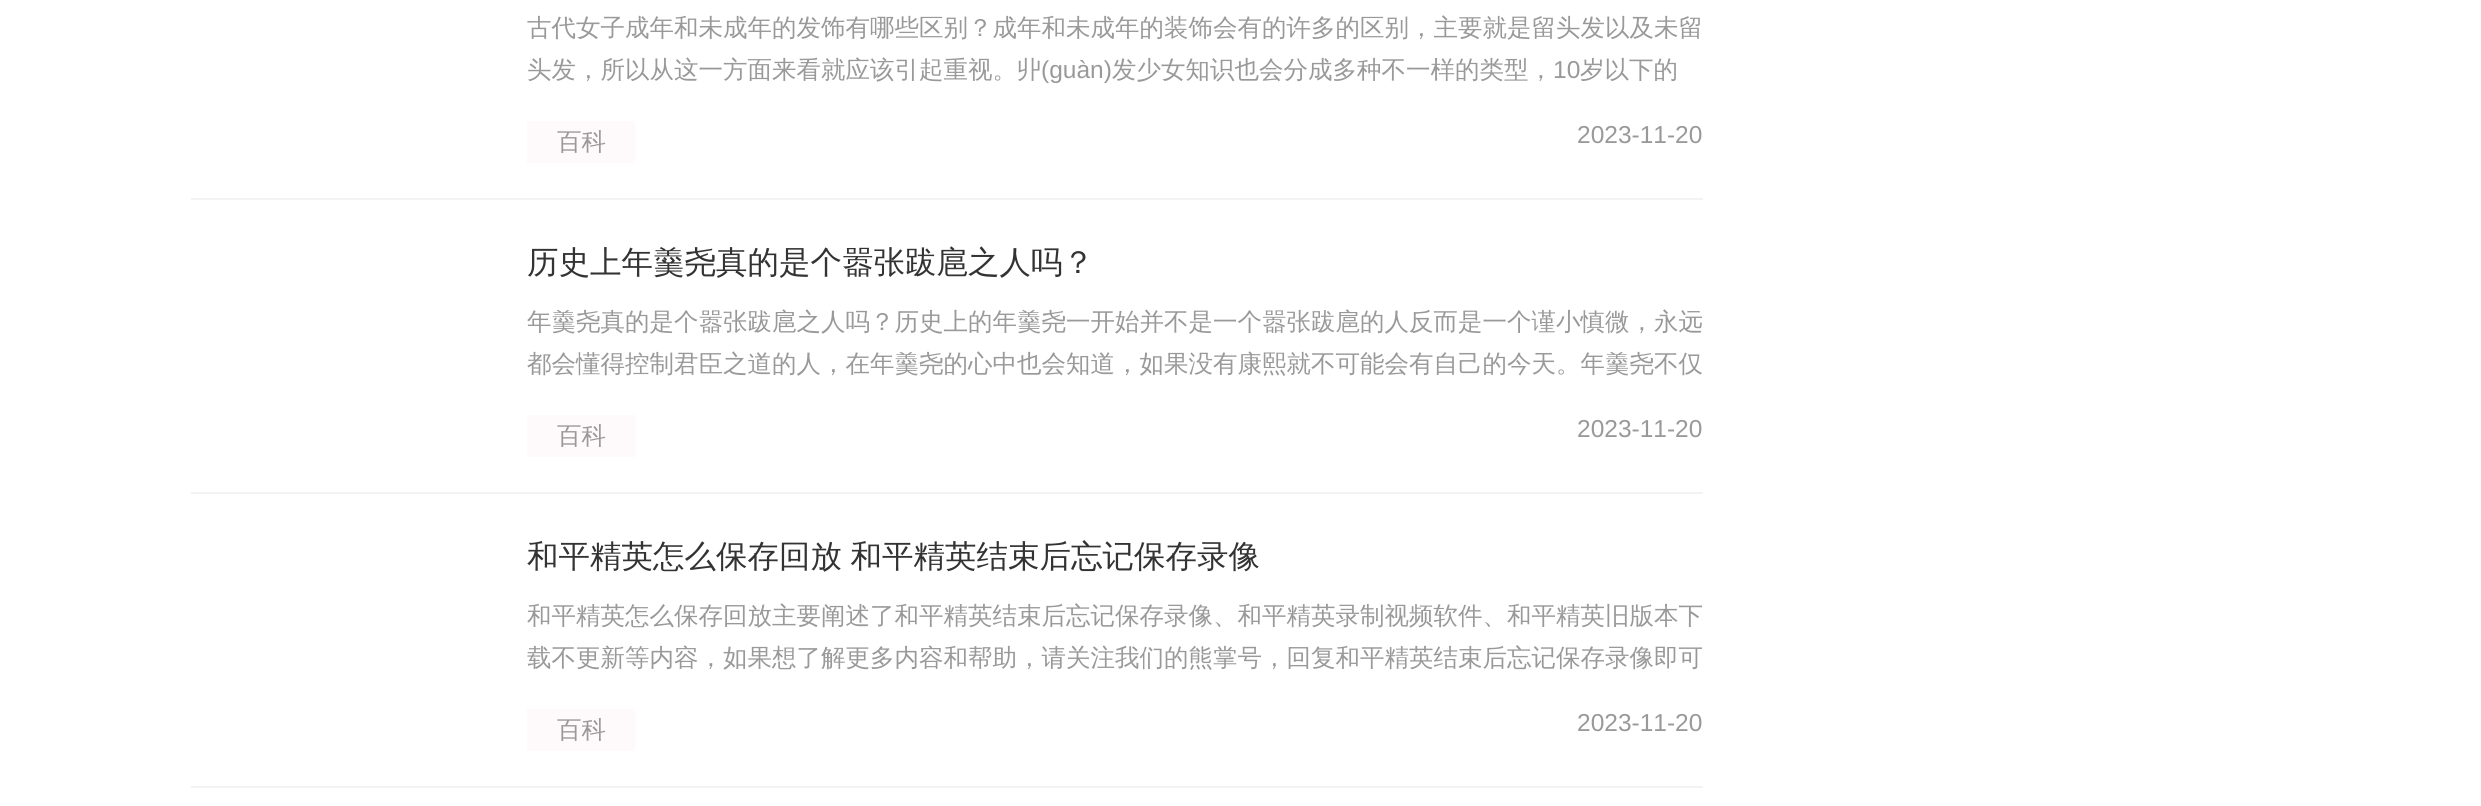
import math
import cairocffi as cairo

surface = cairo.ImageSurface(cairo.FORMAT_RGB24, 2481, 806)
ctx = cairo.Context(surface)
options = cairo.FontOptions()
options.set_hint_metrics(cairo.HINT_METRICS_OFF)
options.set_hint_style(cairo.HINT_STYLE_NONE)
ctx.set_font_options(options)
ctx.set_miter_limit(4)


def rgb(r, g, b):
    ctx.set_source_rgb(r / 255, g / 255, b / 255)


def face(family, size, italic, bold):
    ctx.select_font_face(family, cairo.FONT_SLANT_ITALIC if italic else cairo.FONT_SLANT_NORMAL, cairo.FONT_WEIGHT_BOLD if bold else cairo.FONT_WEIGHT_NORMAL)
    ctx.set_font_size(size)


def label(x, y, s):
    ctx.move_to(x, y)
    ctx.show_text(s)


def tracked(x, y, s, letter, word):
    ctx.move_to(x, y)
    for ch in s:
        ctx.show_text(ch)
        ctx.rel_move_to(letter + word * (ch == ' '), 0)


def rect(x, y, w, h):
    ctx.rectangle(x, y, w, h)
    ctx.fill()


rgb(255, 255, 255)
ctx.paint()
rgb(242, 243, 244)
rect(191, 198, 1512, 2)
face('WenQuanYi Zen Hei Medium', 24.5, 0, 0)
rgb(153, 153, 153)
label(527, 36, '古代女子成年和未成年的发饰有哪些区别？成年和未成年的装饰会有的许多的区别，主要就是留头发以及未留')
label(527, 78, '头发，所以从这一方面来看就应该引起重视。丱')
face('Liberation Sans', 24.5, 0, 0)
label(1041, 78, '(guàn)')
face('WenQuanYi Zen Hei Medium', 24.5, 0, 0)
label(1112, 78, '发少女知识也会分成多种不一样的类型，')
face('Liberation Sans', 24.5, 0, 0)
label(1553, 78, '10')
face('WenQuanYi Zen Hei Medium', 24.5, 0, 0)
label(1580, 78, '岁以下的')
rgb(254, 249, 250)
rect(527, 121, 108, 42)
rgb(153, 153, 153)
label(557, 150, '百科')
face('Liberation Sans', 24.5, 0, 0)
label(1577, 143, '2023-11-20')
rgb(242, 243, 244)
rect(191, 492, 1512, 2)
face('WenQuanYi Zen Hei Medium', 31.5, 0, 0)
rgb(51, 51, 51)
label(527, 273, '历史上年羹尧真的是个嚣张跋扈之人吗？')
face('WenQuanYi Zen Hei Medium', 24.5, 0, 0)
rgb(153, 153, 153)
label(527, 330, '年羹尧真的是个嚣张跋扈之人吗？历史上的年羹尧一开始并不是一个嚣张跋扈的人反而是一个谨小慎微，永远')
label(527, 372, '都会懂得控制君臣之道的人，在年羹尧的心中也会知道，如果没有康熙就不可能会有自己的今天。年羹尧不仅')
rgb(254, 249, 250)
rect(527, 415, 108, 42)
rgb(153, 153, 153)
label(557, 444, '百科')
face('Liberation Sans', 24.5, 0, 0)
label(1577, 437, '2023-11-20')
rgb(242, 243, 244)
rect(191, 786, 1512, 2)
face('WenQuanYi Zen Hei Medium', 31.5, 0, 0)
rgb(51, 51, 51)
tracked(527, 567, '和平精英怎么保存回放 和平精英结束后忘记保存录像', 0, -1)
face('WenQuanYi Zen Hei Medium', 24.5, 0, 0)
rgb(153, 153, 153)
label(527, 624, '和平精英怎么保存回放主要阐述了和平精英结束后忘记保存录像、和平精英录制视频软件、和平精英旧版本下')
label(527, 666, '载不更新等内容，如果想了解更多内容和帮助，请关注我们的熊掌号，回复和平精英结束后忘记保存录像即可')
rgb(254, 249, 250)
rect(527, 709, 108, 42)
rgb(153, 153, 153)
label(557, 738, '百科')
face('Liberation Sans', 24.5, 0, 0)
label(1577, 731, '2023-11-20')
surface.write_to_png('render.png')
